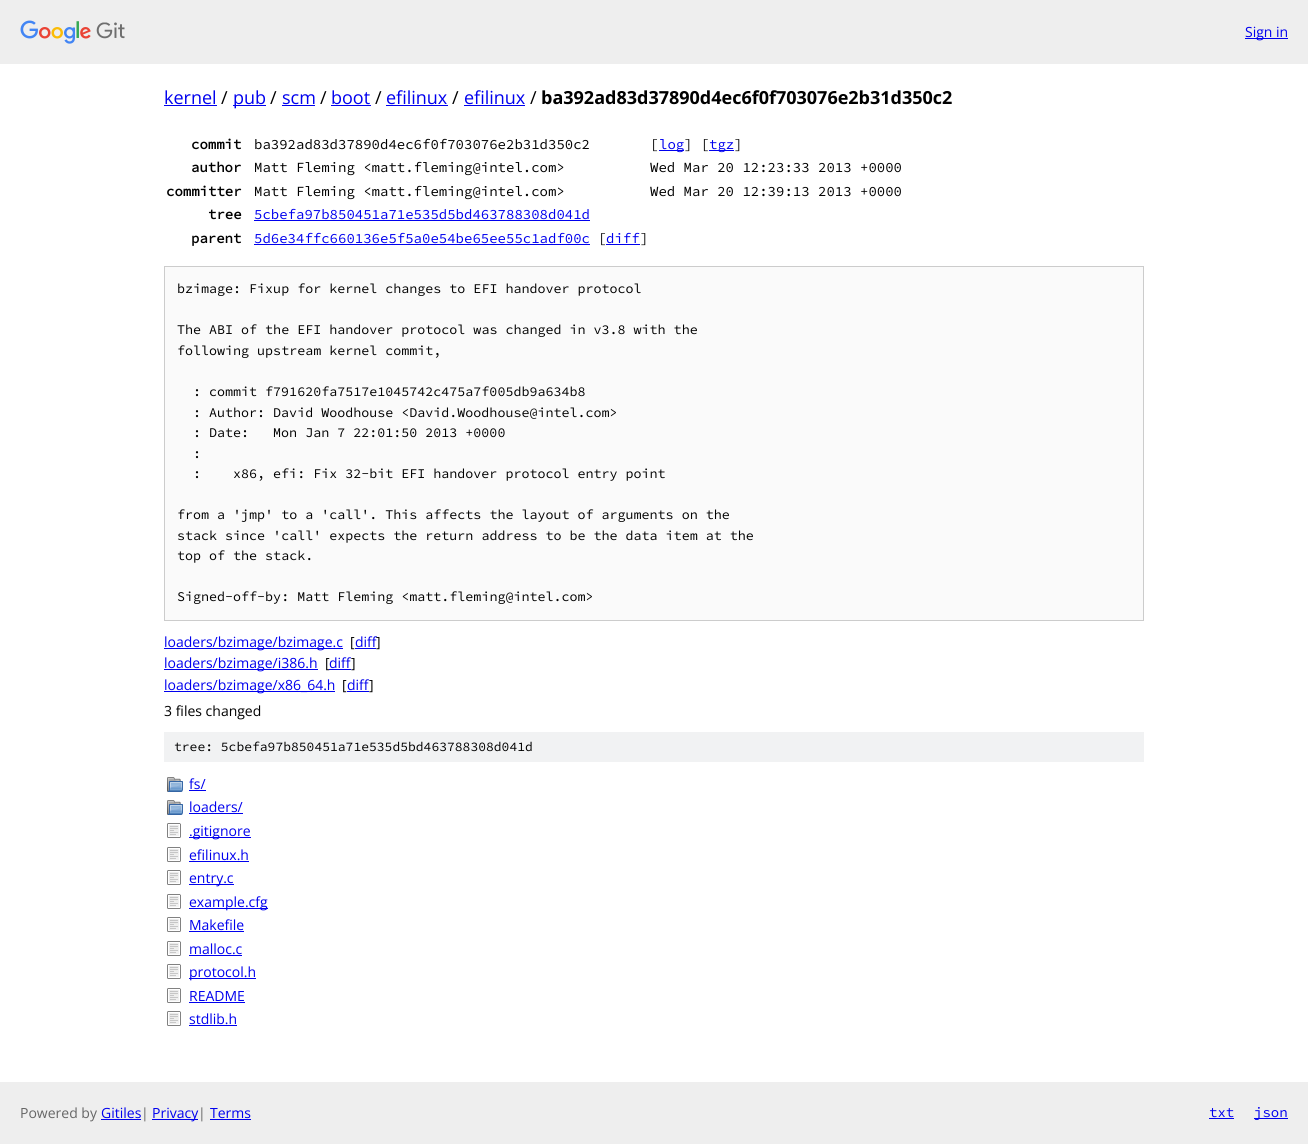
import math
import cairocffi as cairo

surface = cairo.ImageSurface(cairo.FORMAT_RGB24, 1308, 1144)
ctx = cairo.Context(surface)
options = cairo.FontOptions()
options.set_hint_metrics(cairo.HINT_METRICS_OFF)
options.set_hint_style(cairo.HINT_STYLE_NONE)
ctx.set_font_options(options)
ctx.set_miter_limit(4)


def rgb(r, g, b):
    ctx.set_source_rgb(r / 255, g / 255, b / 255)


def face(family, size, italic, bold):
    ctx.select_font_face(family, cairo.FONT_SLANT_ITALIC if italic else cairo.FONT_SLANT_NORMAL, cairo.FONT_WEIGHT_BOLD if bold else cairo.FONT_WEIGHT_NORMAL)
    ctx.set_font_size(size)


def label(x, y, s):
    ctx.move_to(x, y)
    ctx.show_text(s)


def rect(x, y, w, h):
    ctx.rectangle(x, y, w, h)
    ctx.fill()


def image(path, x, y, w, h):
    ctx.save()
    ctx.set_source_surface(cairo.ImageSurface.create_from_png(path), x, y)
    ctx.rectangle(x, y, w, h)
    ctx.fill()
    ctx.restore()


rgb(255, 255, 255)
ctx.paint()
rgb(238, 238, 238)
rect(0, 0, 1308, 64)
image('image0.png', 20, 20, 105, 24)
rgb(0, 0, 238)
rect(1245, 38, 43, 1)
face('Open Sans', 14, 0, 0)
label(1245, 37, 'Sign in')
face('Open Sans', 18, 0, 0)
label(164, 104, 'kernel')
rect(164, 105, 53, 1)
rgb(0, 0, 0)
label(221, 104, '/')
rgb(0, 0, 238)
rect(233, 105, 33, 1)
label(233, 104, 'pub')
rgb(0, 0, 0)
label(270, 104, '/')
rgb(0, 0, 238)
label(282, 104, 'scm')
rect(282, 105, 33, 1)
rgb(0, 0, 0)
label(320, 104, '/')
rgb(0, 0, 238)
label(331, 104, 'boot')
rect(331, 105, 40, 1)
rgb(0, 0, 0)
label(375, 104, '/')
rgb(0, 0, 238)
label(386, 104, 'efilinux')
rect(386, 105, 62, 1)
rgb(0, 0, 0)
label(452, 104, '/')
rgb(0, 0, 238)
label(464, 104, 'efilinux')
rect(464, 105, 61, 1)
rgb(0, 0, 0)
label(530, 104, '/')
face('Open Sans', 18, 0, 1)
label(541, 104, 'ba392ad83d37890d4ec6f0f703076e2b31d350c2')
face('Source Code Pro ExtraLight', 14, 0, 1)
label(191, 149, 'commit')
face('Source Code Pro ExtraLight ExtraLight', 14, 0, 0)
label(254, 149, 'ba392ad83d37890d4ec6f0f703076e2b31d350c2')
label(650, 149, '[')
rgb(0, 0, 238)
rect(659, 150, 25, 1)
label(659, 149, 'log')
rgb(0, 0, 0)
label(684, 149, '] [')
rgb(0, 0, 238)
rect(709, 150, 25, 1)
label(709, 149, 'tgz')
rgb(0, 0, 0)
label(734, 149, ']')
face('Source Code Pro ExtraLight', 14, 0, 1)
label(191, 172, 'author')
face('Source Code Pro ExtraLight ExtraLight', 14, 0, 0)
label(254, 172, 'Matt Fleming <matt.fleming@intel.com>')
label(650, 172, 'Wed Mar 20 12:23:33 2013 +0000')
face('Source Code Pro ExtraLight', 14, 0, 1)
label(166, 196, 'committer')
face('Source Code Pro ExtraLight ExtraLight', 14, 0, 0)
label(254, 196, 'Matt Fleming <matt.fleming@intel.com>')
label(650, 196, 'Wed Mar 20 12:39:13 2013 +0000')
face('Source Code Pro ExtraLight', 14, 0, 1)
label(208, 219, 'tree')
face('Source Code Pro ExtraLight ExtraLight', 14, 0, 0)
rgb(0, 0, 238)
label(254, 219, '5cbefa97b850451a71e535d5bd463788308d041d')
rect(254, 220, 336, 1)
face('Source Code Pro ExtraLight', 14, 0, 1)
rgb(0, 0, 0)
label(191, 243, 'parent')
face('Source Code Pro ExtraLight ExtraLight', 14, 0, 0)
rgb(0, 0, 238)
label(254, 243, '5d6e34ffc660136e5f5a0e54be65ee55c1adf00c')
rect(254, 244, 336, 1)
rgb(0, 0, 0)
label(598, 243, '[')
rgb(0, 0, 238)
rect(606, 244, 34, 1)
label(606, 243, 'diff')
rgb(0, 0, 0)
label(640, 243, ']')
rgb(250, 250, 250)
ctx.rectangle(164.5, 266.5, 979, 354)
ctx.fill_preserve()
rgb(204, 204, 204)
ctx.set_line_width(1)
ctx.stroke()
face('Source Code Pro ExtraLight ExtraLight', 13.35, 0, 0)
rgb(0, 0, 0)
label(177, 293, 'bzimage: Fixup for kernel changes to EFI handover protocol')
label(177, 334, 'The ABI of the EFI handover protocol was changed in v3.8 with the')
label(177, 355, 'following upstream kernel commit,')
label(193, 396, ': commit f791620fa7517e1045742c475a7f005db9a634b8')
label(193, 417, ': Author: David Woodhouse <David.Woodhouse@intel.com>')
label(193, 437, ': Date:   Mon Jan 7 22:01:50 2013 +0000')
label(193, 458, ':')
label(193, 478, ':    x86, efi: Fix 32-bit EFI handover protocol entry point')
label(177, 519, 'from a \'jmp\' to a \'call\'. This affects the layout of arguments on the')
label(177, 540, 'stack since \'call\' expects the return address to be the data item at the')
label(177, 560, 'top of the stack.')
label(177, 601, 'Signed-off-by: Matt Fleming <matt.fleming@intel.com>')
rgb(0, 0, 238)
rect(164, 648, 179, 1)
face('Open Sans', 14, 0, 0)
label(164, 647, 'loaders/bzimage/bzimage.c')
rgb(0, 0, 0)
label(350, 647, '[')
rgb(0, 0, 238)
rect(355, 648, 21, 1)
label(355, 647, 'diff')
rgb(0, 0, 0)
label(376, 647, ']')
rgb(0, 0, 238)
rect(164, 669, 154, 1)
label(164, 668, 'loaders/bzimage/i386.h')
rgb(0, 0, 0)
label(325, 668, '[')
rgb(0, 0, 238)
rect(329, 669, 22, 1)
label(329, 668, 'diff')
rgb(0, 0, 0)
label(351, 668, ']')
rgb(0, 0, 238)
rect(164, 691, 171, 1)
label(164, 690, 'loaders/bzimage/x86_64.h')
rgb(0, 0, 0)
label(342, 690, '[')
rgb(0, 0, 238)
rect(347, 691, 22, 1)
label(347, 690, 'diff')
rgb(0, 0, 0)
label(369, 690, ']')
label(164, 716, '3 files changed')
rgb(241, 242, 243)
rect(164, 732, 980, 30)
face('Source Code Pro ExtraLight ExtraLight', 13, 0, 0)
rgb(0, 0, 0)
label(174, 751, 'tree: 5cbefa97b850451a71e535d5bd463788308d041d')
image('image1.png', 167, 777, 16, 15)
face('Open Sans', 14, 0, 0)
rgb(0, 0, 238)
label(189, 789, 'fs/')
rect(189, 790, 17, 1)
image('image1.png', 167, 800, 16, 15)
label(189, 812, 'loaders/')
rect(189, 813, 54, 1)
image('image2.png', 167, 823, 14, 15)
rect(189, 837, 62, 1)
label(189, 836, '.gitignore')
image('image2.png', 167, 847, 14, 15)
label(189, 860, 'efilinux.h')
rect(189, 861, 60, 1)
image('image2.png', 167, 870, 14, 15)
rect(189, 884, 45, 1)
label(189, 883, 'entry.c')
image('image2.png', 167, 894, 14, 15)
rect(189, 908, 79, 1)
label(189, 907, 'example.cfg')
image('image2.png', 167, 917, 14, 15)
label(189, 930, 'Makefile')
rect(189, 931, 55, 1)
image('image2.png', 167, 941, 14, 15)
label(189, 954, 'malloc.c')
rect(189, 955, 53, 1)
image('image2.png', 167, 964, 14, 15)
rect(189, 978, 67, 1)
label(189, 977, 'protocol.h')
image('image2.png', 167, 988, 14, 15)
label(189, 1001, 'README')
rect(189, 1002, 56, 1)
image('image2.png', 167, 1011, 14, 15)
label(189, 1024, 'stdlib.h')
rect(189, 1025, 48, 1)
rgb(238, 238, 238)
rect(0, 1082, 1308, 62)
rgb(102, 102, 102)
label(20, 1118, 'Powered by')
rgb(0, 0, 238)
label(101, 1118, 'Gitiles')
rect(101, 1119, 40, 1)
rgb(102, 102, 102)
label(141, 1118, '|')
rgb(0, 0, 238)
rect(152, 1119, 46, 1)
label(152, 1118, 'Privacy')
rgb(102, 102, 102)
label(198, 1118, '|')
rgb(0, 0, 238)
label(210, 1118, 'Terms')
rect(210, 1119, 41, 1)
face('Source Code Pro ExtraLight ExtraLight', 14, 0, 0)
label(1209, 1117, 'txt')
rect(1209, 1118, 25, 1)
rect(1254, 1118, 34, 1)
label(1254, 1117, 'json')
surface.write_to_png('render.png')
